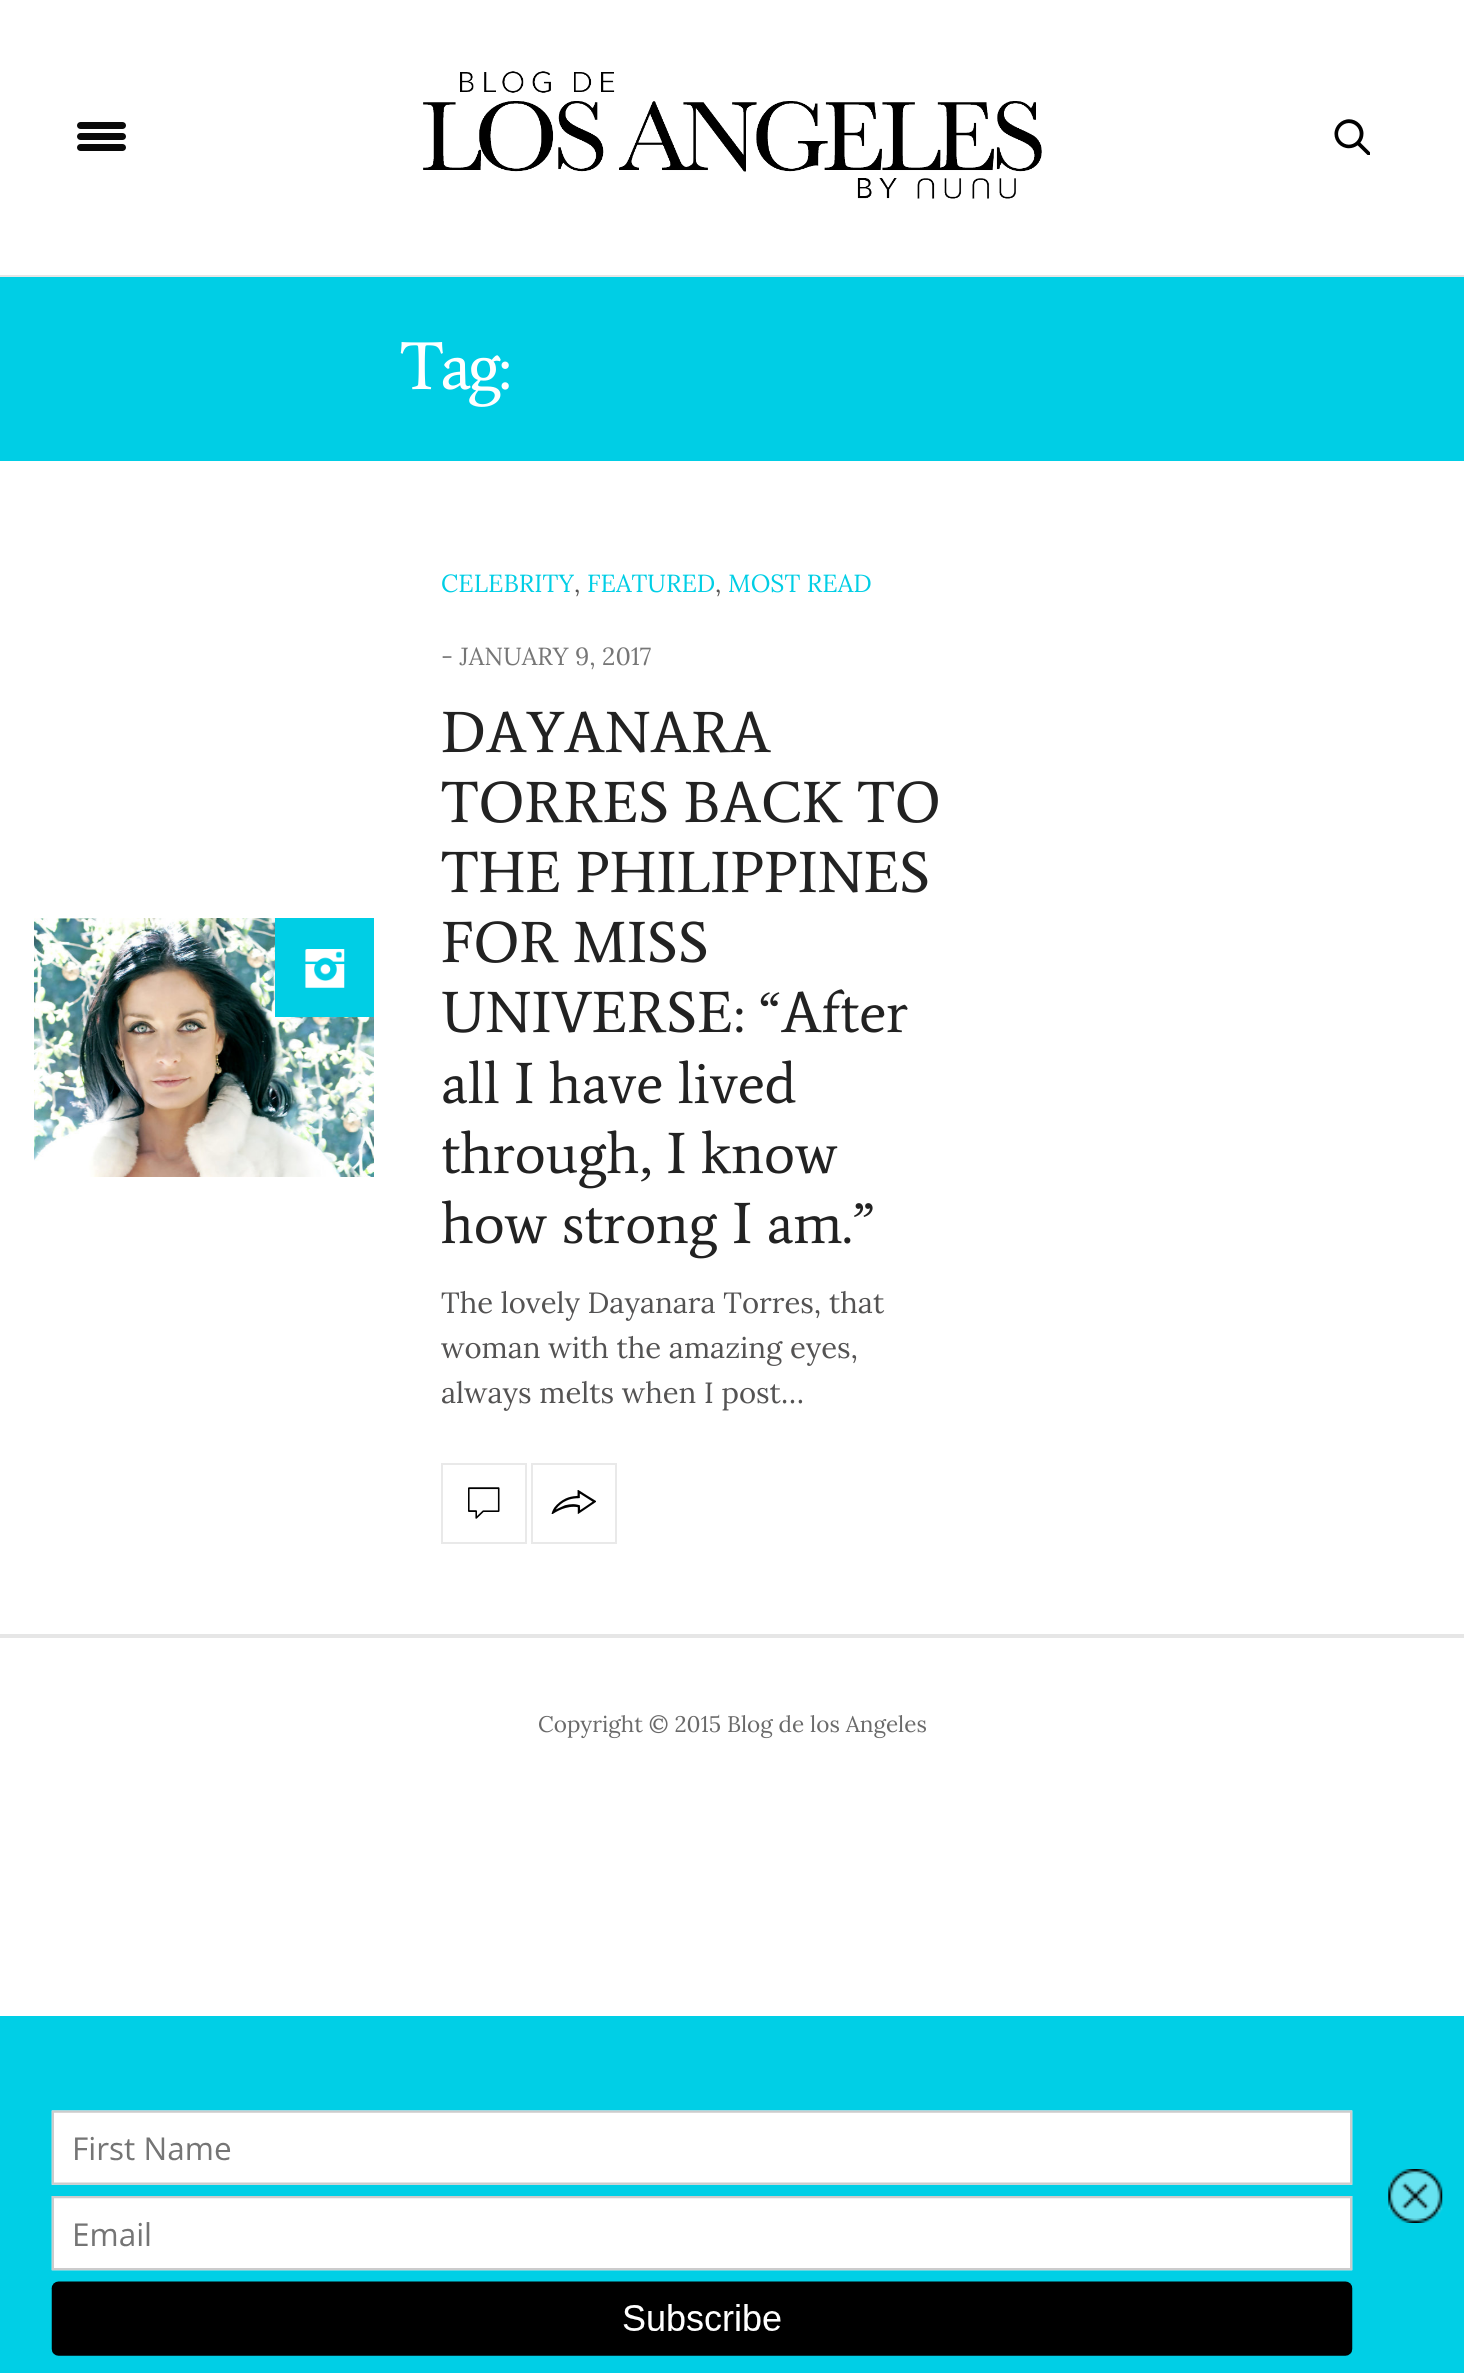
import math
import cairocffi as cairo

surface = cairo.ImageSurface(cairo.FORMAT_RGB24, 1464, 2373)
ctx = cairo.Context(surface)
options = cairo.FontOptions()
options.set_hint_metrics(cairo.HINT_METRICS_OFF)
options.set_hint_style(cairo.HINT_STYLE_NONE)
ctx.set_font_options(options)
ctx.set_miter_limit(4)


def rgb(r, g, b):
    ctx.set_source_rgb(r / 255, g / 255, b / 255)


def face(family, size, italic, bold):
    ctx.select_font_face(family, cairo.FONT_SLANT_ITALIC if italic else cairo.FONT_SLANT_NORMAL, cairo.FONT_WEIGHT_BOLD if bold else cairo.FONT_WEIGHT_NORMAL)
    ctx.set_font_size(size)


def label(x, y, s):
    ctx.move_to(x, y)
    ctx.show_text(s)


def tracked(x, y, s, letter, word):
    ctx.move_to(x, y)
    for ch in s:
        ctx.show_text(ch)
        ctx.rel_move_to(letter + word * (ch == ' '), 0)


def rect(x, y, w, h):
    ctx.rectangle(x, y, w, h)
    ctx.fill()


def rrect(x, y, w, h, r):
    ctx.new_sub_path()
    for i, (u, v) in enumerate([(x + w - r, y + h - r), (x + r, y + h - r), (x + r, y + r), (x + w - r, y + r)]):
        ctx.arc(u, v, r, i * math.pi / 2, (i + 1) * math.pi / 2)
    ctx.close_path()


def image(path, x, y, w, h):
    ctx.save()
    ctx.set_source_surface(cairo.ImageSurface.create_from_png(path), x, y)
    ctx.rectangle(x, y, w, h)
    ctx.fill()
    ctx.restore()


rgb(255, 255, 255)
ctx.paint()
rgb(230, 230, 230)
rect(0, 275, 1464, 2)
rgb(10, 10, 10)
rrect(77, 122, 49, 7, 3.5)
ctx.fill()
rrect(77, 133, 49, 7, 3.5)
ctx.fill()
rrect(77, 144, 49, 7, 3.5)
ctx.fill()
image('image0.png', 423, 71, 619, 128)
image('image1.png', 1334, 119, 36, 36)
rgb(0, 206, 229)
rect(0, 277, 1464, 184)
face('Average', 68, 0, 0)
rgb(255, 255, 255)
tracked(400, 389, 'Tag:', -3.5, 0)
image('image2.png', 34, 918, 340, 259)
rgb(0, 206, 229)
rect(275, 918, 99, 99)
image('image3.png', 305, 949, 40, 39)
face('Lora', 24.75, 0, 0)
label(441, 592, 'CELEBRITY')
rgb(84, 83, 83)
label(574, 592, ',')
rgb(0, 206, 229)
label(587, 592, 'FEATURED')
rgb(84, 83, 83)
label(715, 592, ',')
rgb(0, 206, 229)
label(728, 592, 'MOST READ')
rgb(118, 118, 118)
label(441, 665, '- JANUARY 9, 2017')
face('Average', 58.5, 0, 0)
rgb(34, 34, 34)
label(441, 752, 'DAYANARA')
label(441, 822, 'TORRES BACK TO')
label(441, 892, 'THE PHILIPPINES')
label(441, 962, 'FOR MISS')
label(441, 1032, 'UNIVERSE: “After')
label(441, 1103, 'all I have lived')
label(441, 1173, 'through, I know')
label(441, 1243, 'how strong I am.”')
face('Lora', 29.25, 0, 0)
rgb(84, 83, 83)
label(441, 1313, 'The lovely Dayanara Torres, that')
label(441, 1358, 'woman with the amazing eyes,')
label(441, 1403, 'always melts when I post…')
ctx.rectangle(442, 1464, 84, 79)
rgb(233, 233, 233)
ctx.stroke()
image('image4.png', 468, 1487, 32, 32)
ctx.rectangle(532, 1464, 84, 79)
ctx.stroke()
image('image5.png', 551, 1490, 45, 24)
rgb(230, 230, 230)
rect(0, 1634, 1464, 4)
face('Lora', 22.5, 0, 0)
rgb(106, 106, 106)
label(538, 1732, 'Copyright © 2015 Blog de los Angeles')
image('image6.png', 0, 2016, 1464, 357)
surface.write_to_png('render.png')
